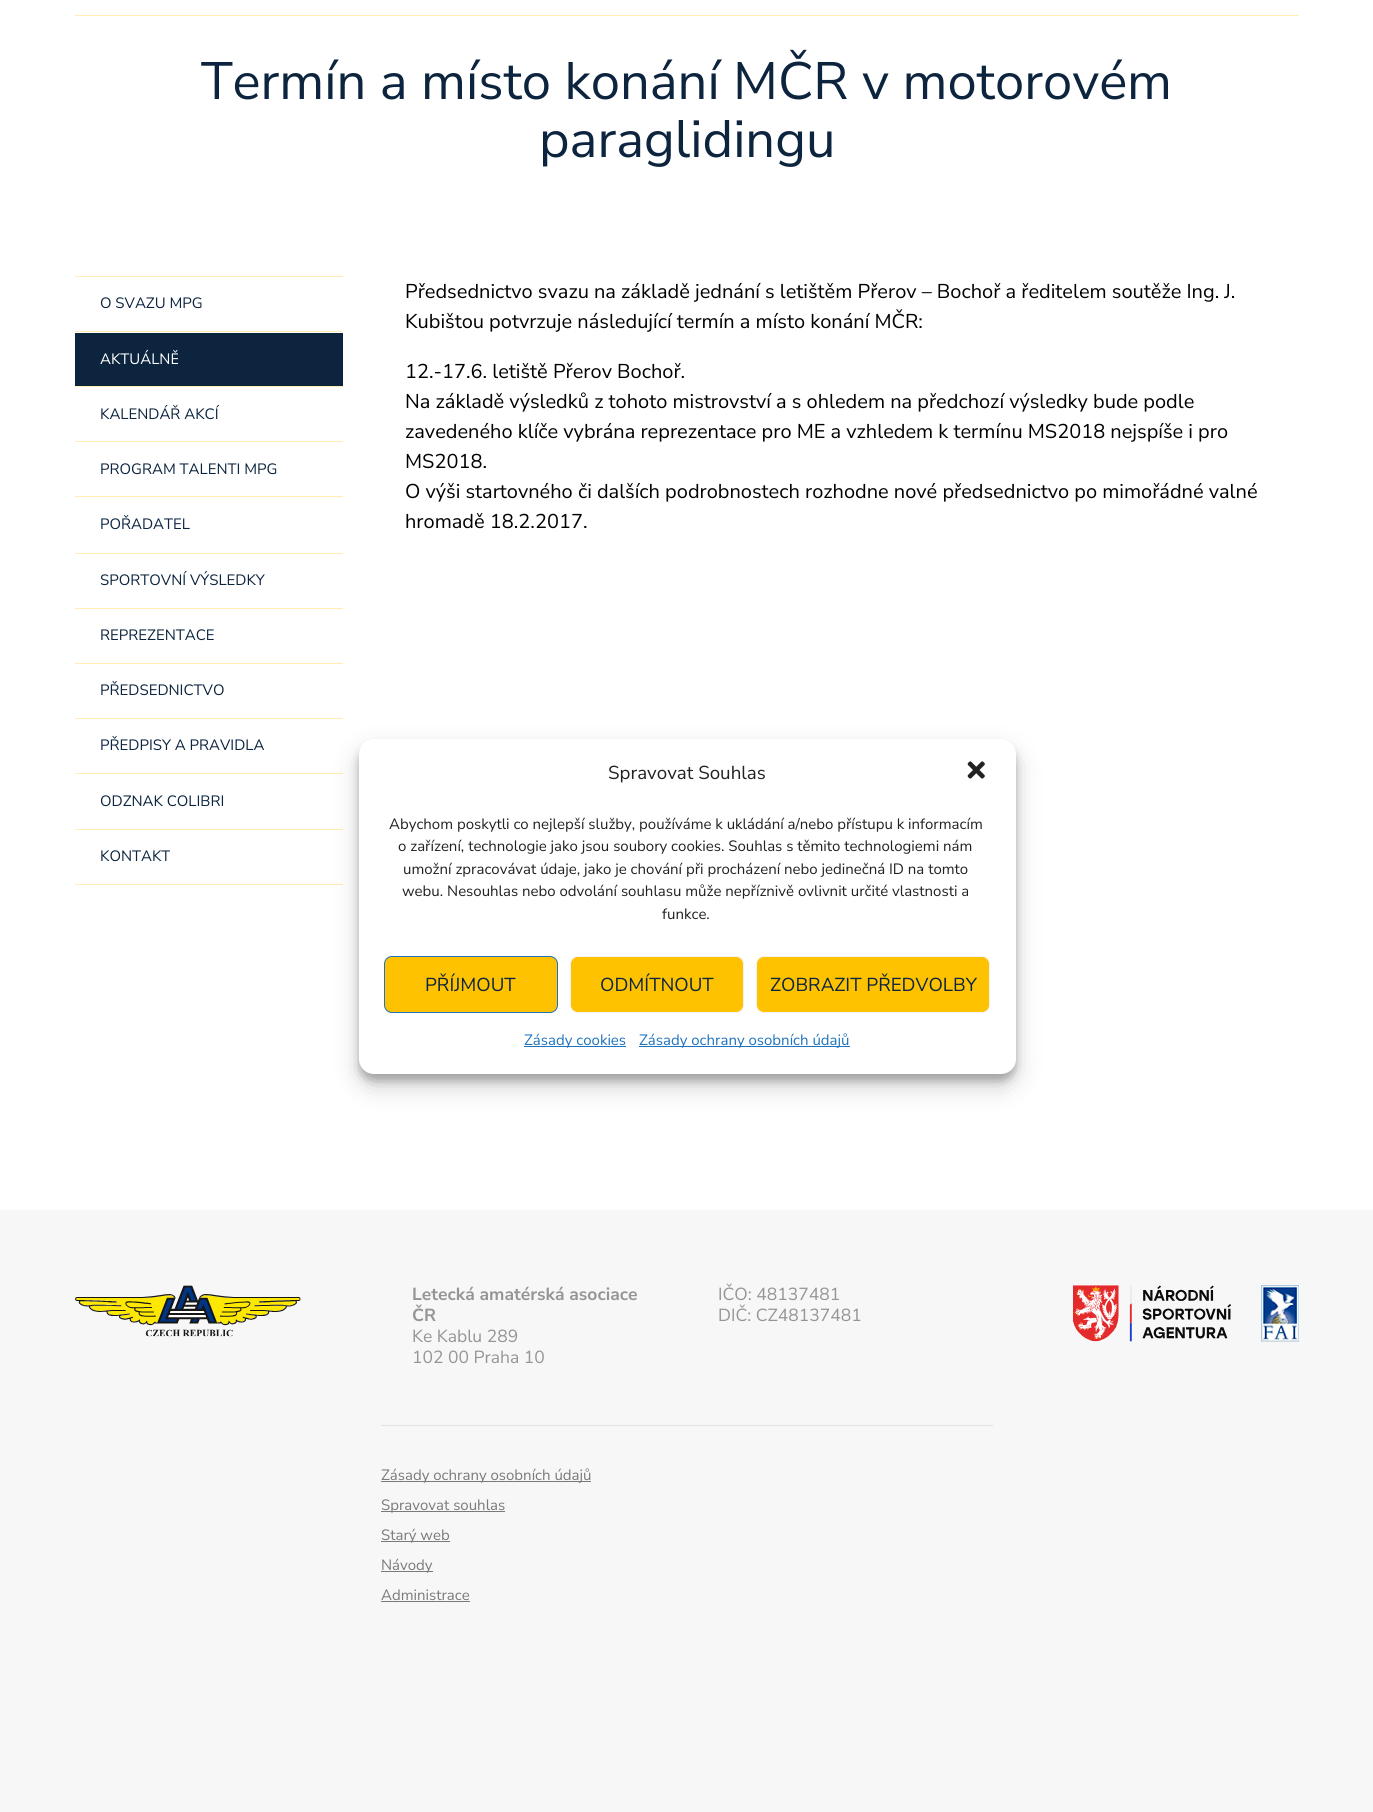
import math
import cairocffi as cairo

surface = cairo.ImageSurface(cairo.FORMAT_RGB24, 1373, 1812)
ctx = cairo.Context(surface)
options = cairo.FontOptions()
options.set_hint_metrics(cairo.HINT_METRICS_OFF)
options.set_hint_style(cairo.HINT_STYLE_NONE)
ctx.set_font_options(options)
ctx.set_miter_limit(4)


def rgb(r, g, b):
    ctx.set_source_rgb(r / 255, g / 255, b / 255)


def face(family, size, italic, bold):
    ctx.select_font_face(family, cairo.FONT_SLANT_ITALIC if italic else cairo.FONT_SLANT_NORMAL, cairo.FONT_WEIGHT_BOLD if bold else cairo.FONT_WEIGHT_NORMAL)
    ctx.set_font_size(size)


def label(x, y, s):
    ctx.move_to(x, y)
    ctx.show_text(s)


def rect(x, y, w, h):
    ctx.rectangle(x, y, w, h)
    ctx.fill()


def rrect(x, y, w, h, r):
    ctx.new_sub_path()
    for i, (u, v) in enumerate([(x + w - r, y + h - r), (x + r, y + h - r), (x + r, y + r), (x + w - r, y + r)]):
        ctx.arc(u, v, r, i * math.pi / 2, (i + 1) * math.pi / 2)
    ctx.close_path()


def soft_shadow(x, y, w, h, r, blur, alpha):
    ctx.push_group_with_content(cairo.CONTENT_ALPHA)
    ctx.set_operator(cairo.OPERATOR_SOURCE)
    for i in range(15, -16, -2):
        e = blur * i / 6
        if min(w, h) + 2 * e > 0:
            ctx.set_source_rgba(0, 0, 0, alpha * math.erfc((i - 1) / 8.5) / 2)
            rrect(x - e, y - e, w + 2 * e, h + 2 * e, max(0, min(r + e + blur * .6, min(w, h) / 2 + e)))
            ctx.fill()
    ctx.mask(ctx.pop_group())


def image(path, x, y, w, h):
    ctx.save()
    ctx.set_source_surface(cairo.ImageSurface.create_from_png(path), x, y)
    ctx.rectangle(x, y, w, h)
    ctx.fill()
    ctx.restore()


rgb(255, 255, 255)
ctx.paint()
rgb(255, 237, 179)
rect(75, 15, 1224, 1)
face('Nunito Sans', 52.5, 0, 0)
rgb(12, 36, 62)
label(201, 99, 'Termín a místo konání MČR v motorovém')
label(539, 157, 'paraglidingu')
rgb(255, 237, 179)
rect(75, 884, 268, 1)
rect(75, 276, 268, 1)
face('Nunito Sans', 15, 0, 0)
rgb(12, 36, 62)
label(100, 308, 'O SVAZU MPG')
rgb(255, 237, 179)
rect(75, 331, 268, 1)
rgb(12, 36, 62)
rect(75, 333, 268, 53)
rgb(255, 255, 255)
label(100, 364, 'AKTUÁLNĚ')
rgb(255, 237, 179)
rect(75, 386, 268, 1)
rgb(12, 36, 62)
label(100, 419, 'KALENDÁŘ AKCÍ')
rgb(255, 237, 179)
rect(75, 441, 268, 1)
rgb(12, 36, 62)
label(100, 474, 'PROGRAM TALENTI MPG')
rgb(255, 237, 179)
rect(75, 496, 268, 1)
rgb(12, 36, 62)
label(100, 529, 'POŘADATEL')
rgb(255, 237, 179)
rect(75, 553, 268, 1)
rgb(12, 36, 62)
label(100, 585, 'SPORTOVNÍ VÝSLEDKY')
rgb(255, 237, 179)
rect(75, 608, 268, 1)
rgb(12, 36, 62)
label(100, 640, 'REPREZENTACE')
rgb(255, 237, 179)
rect(75, 663, 268, 1)
rgb(12, 36, 62)
label(100, 695, 'PŘEDSEDNICTVO')
rgb(255, 237, 179)
rect(75, 718, 268, 1)
rgb(12, 36, 62)
label(100, 750, 'PŘEDPISY A PRAVIDLA')
rgb(255, 237, 179)
rect(75, 773, 268, 1)
rgb(12, 36, 62)
label(100, 806, 'ODZNAK COLIBRI')
rgb(255, 237, 179)
rect(75, 829, 268, 1)
rgb(12, 36, 62)
label(100, 861, 'KONTAKT')
face('Nunito Sans', 20, 0, 0)
rgb(0, 0, 0)
label(405, 298, 'Předsednictvo svazu na základě jednání s letištěm Přerov – Bochoř a ředitelem soutěže Ing. J.')
label(405, 328, 'Kubištou potvrzuje následující termín a místo konání MČR:')
label(405, 378, '12.-17.6. letiště Přerov Bochoř.')
label(405, 408, 'Na základě výsledků z tohoto mistrovství a s ohledem na předchozí výsledky bude podle')
label(405, 438, 'zavedeného klíče vybrána reprezentace pro ME a vzhledem k termínu MS2018 nejspíše i pro')
label(405, 468, 'MS2018.')
label(405, 498, 'O výši startovného či dalších podrobnostech rozhodne nové předsednictvo po mimořádné valné')
label(405, 528, 'hromadě 18.2.2017.')
rgb(247, 247, 247)
rect(0, 1210, 1373, 602)
image('image0.png', 75, 1285, 226, 52)
face('Nunito Sans', 17.5, 0, 1)
rgb(150, 148, 148)
label(412, 1300, 'Letecká amatérská asociace')
label(412, 1321, 'ČR')
face('Nunito Sans', 17.5, 0, 0)
label(412, 1342, 'Ke Kablu 289')
label(412, 1363, '102 00 Praha 10')
label(718, 1300, 'IČO: 48137481')
label(718, 1321, 'DIČ: CZ48137481')
rgb(227, 226, 226)
rect(381, 1425, 612, 1)
rgb(123, 122, 122)
rect(381, 1481, 210, 1)
face('Nunito Sans', 15, 0, 0)
label(381, 1480, 'Zásady ochrany osobních údajů')
rect(381, 1511, 124, 1)
label(381, 1510, 'Spravovat souhlas')
rect(381, 1541, 69, 1)
label(381, 1540, 'Starý web')
rect(381, 1571, 52, 1)
label(381, 1570, 'Návody')
label(381, 1600, 'Administrace')
rect(381, 1601, 89, 1)
image('image1.png', 1073, 1285, 158, 57)
image('image2.png', 1261, 1285, 38, 57)
rgb(0, 0, 0)
soft_shadow(359, 746, 657, 335, 15, 4, 0.23)
soft_shadow(359, 751, 657, 335, 15, 12.5, 0.19)
rgb(255, 255, 255)
rrect(359, 739, 657, 335, 15)
ctx.fill()
face('Nunito Sans', 18.75, 0, 0)
rgb(34, 34, 34)
label(608, 779, 'Spravovat Souhlas')
image('image3.png', 967, 761, 18, 18)
face('Nunito Sans', 15, 0, 0)
label(389, 829, 'Abychom poskytli co nejlepší služby, používáme k ukládání a/nebo přístupu k informacím')
label(398, 851, 'o zařízení, technologie jako jsou soubory cookies. Souhlas s těmito technologiemi nám')
label(403, 874, 'umožní zpracovávat údaje, jako je chování při procházení nebo jedinečná ID na tomto')
label(402, 896, 'webu. Nesouhlas nebo odvolání souhlasu může nepříznivě ovlivnit určité vlastnosti a')
label(662, 919, 'funkce.')
rgb(255, 194, 1)
rrect(384.5, 956.5, 173, 56, 7.5)
ctx.fill_preserve()
rgb(30, 115, 190)
ctx.set_line_width(1)
ctx.stroke()
face('Nunito Sans', 18.75, 0, 0)
rgb(12, 36, 62)
label(425, 991, 'PŘÍJMOUT')
rgb(255, 194, 1)
rrect(570.5, 956.5, 173, 56, 7.5)
ctx.fill_preserve()
rgb(242, 242, 242)
ctx.stroke()
rgb(12, 36, 62)
label(600, 991, 'ODMÍTNOUT')
rgb(255, 194, 1)
rrect(756.5, 956.5, 233, 56, 7.5)
ctx.fill_preserve()
rgb(242, 242, 242)
ctx.stroke()
rgb(12, 36, 62)
label(770, 991, 'ZOBRAZIT PŘEDVOLBY')
rgb(30, 115, 190)
rect(524, 1046, 102, 1)
face('Nunito Sans', 15, 0, 0)
label(524, 1045, 'Zásady cookies')
rect(639, 1046, 211, 1)
label(639, 1045, 'Zásady ochrany osobních údajů')
surface.write_to_png('render.png')
